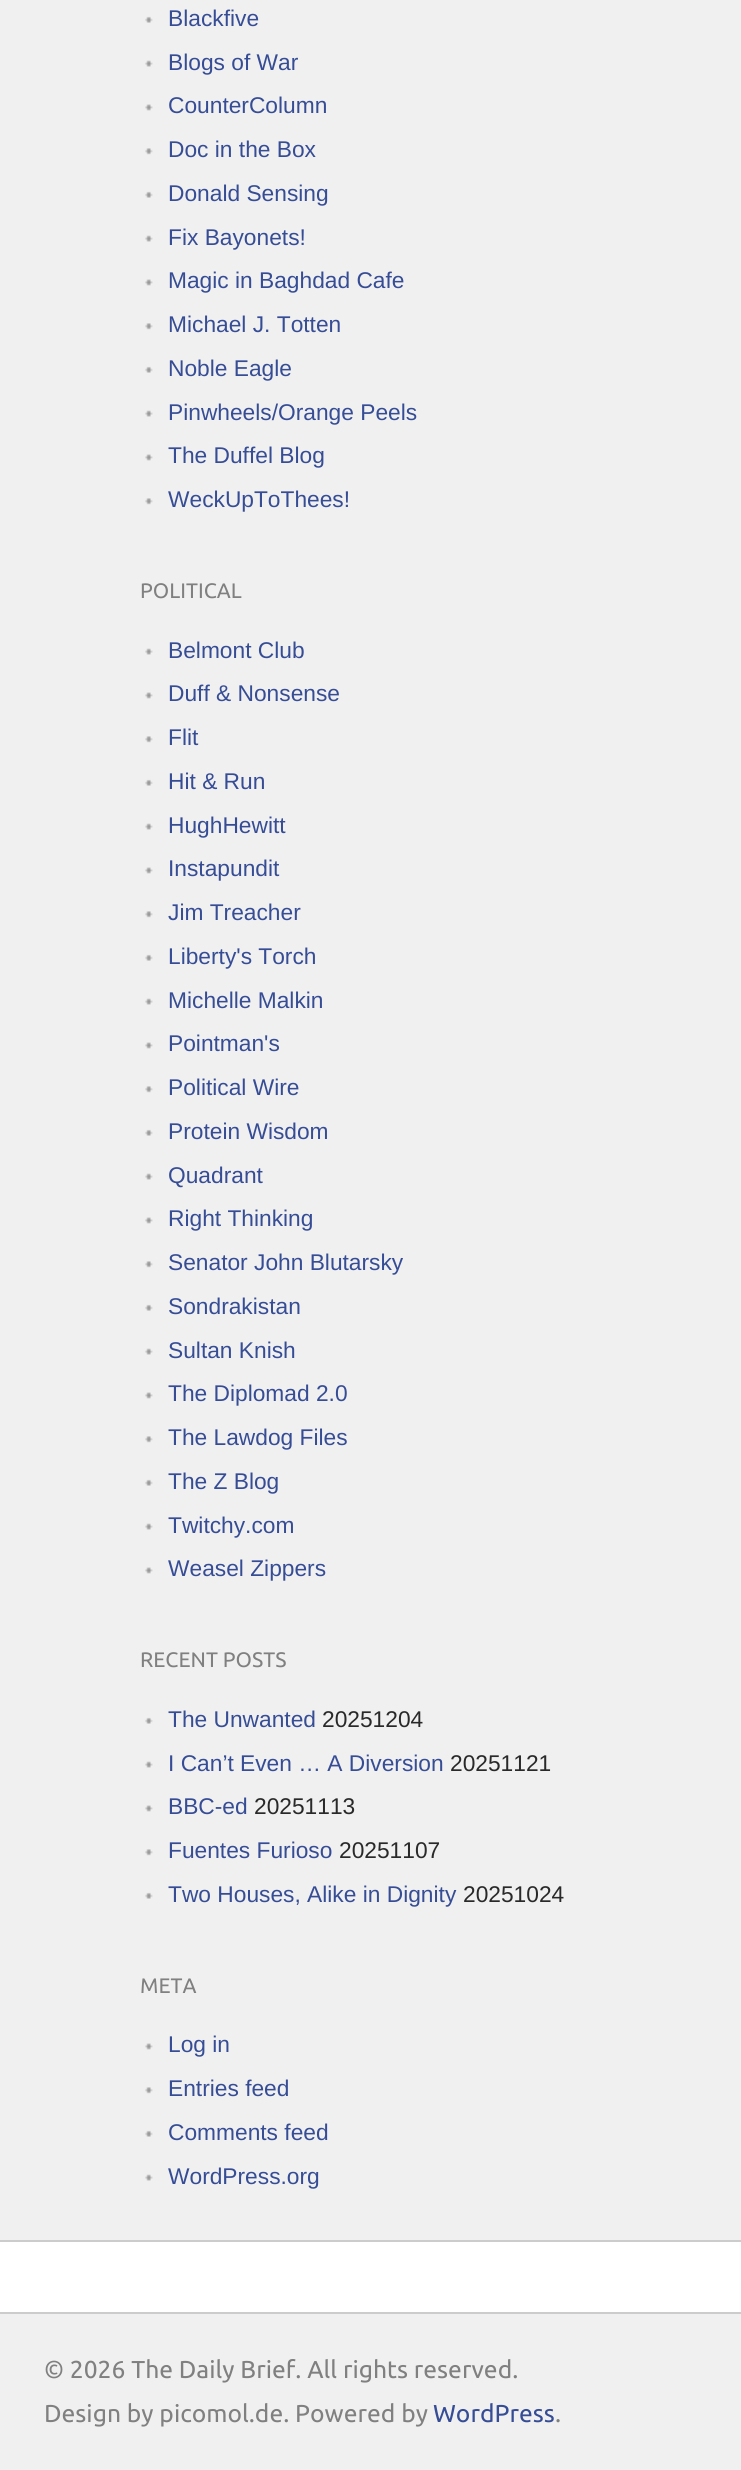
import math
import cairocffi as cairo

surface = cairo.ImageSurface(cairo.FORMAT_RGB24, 741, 2470)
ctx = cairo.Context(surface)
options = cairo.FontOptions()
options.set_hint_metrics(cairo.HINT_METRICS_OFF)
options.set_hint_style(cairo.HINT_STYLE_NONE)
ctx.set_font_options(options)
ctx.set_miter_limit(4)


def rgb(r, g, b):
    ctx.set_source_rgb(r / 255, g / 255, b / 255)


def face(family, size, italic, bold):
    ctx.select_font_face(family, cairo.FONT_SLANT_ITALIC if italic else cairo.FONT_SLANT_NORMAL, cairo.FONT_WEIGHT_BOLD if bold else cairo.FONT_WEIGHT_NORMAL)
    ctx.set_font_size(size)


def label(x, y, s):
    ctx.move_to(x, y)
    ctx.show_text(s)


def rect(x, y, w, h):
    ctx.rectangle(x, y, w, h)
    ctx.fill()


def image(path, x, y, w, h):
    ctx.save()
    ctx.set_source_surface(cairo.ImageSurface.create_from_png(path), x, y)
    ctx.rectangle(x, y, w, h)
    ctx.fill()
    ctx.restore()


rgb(255, 255, 255)
ctx.paint()
rgb(240, 240, 240)
rect(0, 0, 741, 2240)
rgb(204, 204, 204)
rect(0, 2240, 741, 2)
image('image0.png', 145, 16, 8, 7)
face('Liberation Sans', 22.75, 0, 0)
rgb(54, 77, 150)
label(168, 26, 'Blackfive')
image('image1.png', 145, 60, 8, 7)
label(168, 70, 'Blogs of War')
image('image2.png', 145, 104, 8, 7)
label(168, 113, 'CounterColumn')
image('image3.png', 145, 148, 8, 7)
label(168, 157, 'Doc in the Box')
image('image0.png', 145, 191, 8, 7)
label(168, 201, 'Donald Sensing')
image('image1.png', 145, 235, 8, 7)
label(168, 245, 'Fix Bayonets!')
image('image2.png', 145, 279, 8, 7)
label(168, 288, 'Magic in Baghdad Cafe')
image('image3.png', 145, 323, 8, 7)
label(168, 332, 'Michael J. Totten')
image('image0.png', 145, 366, 8, 7)
label(168, 376, 'Noble Eagle')
image('image1.png', 145, 410, 8, 7)
label(168, 420, 'Pinwheels/Orange Peels')
image('image2.png', 145, 454, 8, 7)
label(168, 463, 'The Duffel Blog')
image('image3.png', 145, 498, 8, 7)
label(168, 507, 'WeckUpToThees!')
face('Ubuntu', 21, 0, 0)
rgb(128, 128, 128)
label(140, 598, 'POLITICAL')
image('image1.png', 145, 648, 8, 7)
face('Liberation Sans', 22.75, 0, 0)
rgb(54, 77, 150)
label(168, 658, 'Belmont Club')
image('image2.png', 145, 692, 8, 7)
label(168, 701, 'Duff & Nonsense')
image('image3.png', 145, 736, 8, 7)
label(168, 745, 'Flit')
image('image0.png', 145, 779, 8, 7)
label(168, 789, 'Hit & Run')
image('image1.png', 145, 823, 8, 7)
label(168, 833, 'HughHewitt')
image('image2.png', 145, 867, 8, 7)
label(168, 876, 'Instapundit')
image('image3.png', 145, 911, 8, 7)
label(168, 920, 'Jim Treacher')
image('image0.png', 145, 954, 8, 7)
label(168, 964, 'Liberty\'s Torch')
image('image1.png', 145, 998, 8, 7)
label(168, 1008, 'Michelle Malkin')
image('image2.png', 145, 1042, 8, 7)
label(168, 1051, 'Pointman\'s')
image('image3.png', 145, 1086, 8, 7)
label(168, 1095, 'Political Wire')
image('image0.png', 145, 1129, 8, 7)
label(168, 1139, 'Protein Wisdom')
image('image1.png', 145, 1173, 8, 7)
label(168, 1183, 'Quadrant')
image('image2.png', 145, 1217, 8, 7)
label(168, 1226, 'Right Thinking')
image('image3.png', 145, 1261, 8, 7)
label(168, 1270, 'Senator John Blutarsky')
image('image0.png', 145, 1304, 8, 7)
label(168, 1314, 'Sondrakistan')
image('image1.png', 145, 1348, 8, 7)
label(168, 1358, 'Sultan Knish')
image('image2.png', 145, 1392, 8, 7)
label(168, 1401, 'The Diplomad 2.0')
image('image3.png', 145, 1436, 8, 7)
label(168, 1445, 'The Lawdog Files')
image('image0.png', 145, 1479, 8, 7)
label(168, 1489, 'The Z Blog')
image('image1.png', 145, 1523, 8, 7)
label(168, 1533, 'Twitchy.com')
image('image2.png', 145, 1567, 8, 7)
label(168, 1576, 'Weasel Zippers')
face('Ubuntu', 21, 0, 0)
rgb(128, 128, 128)
label(140, 1667, 'RECENT POSTS')
image('image0.png', 145, 1717, 8, 7)
face('Liberation Sans', 22.75, 0, 0)
rgb(54, 77, 150)
label(168, 1727, 'The Unwanted')
rgb(41, 41, 41)
label(322, 1727, '20251204')
image('image1.png', 145, 1761, 8, 7)
rgb(54, 77, 150)
label(168, 1771, 'I Can’t Even … A Diversion')
rgb(41, 41, 41)
label(450, 1771, '20251121')
image('image2.png', 145, 1805, 8, 7)
rgb(54, 77, 150)
label(168, 1814, 'BBC-ed')
rgb(41, 41, 41)
label(254, 1814, '20251113')
image('image3.png', 145, 1849, 8, 7)
rgb(54, 77, 150)
label(168, 1858, 'Fuentes Furioso')
rgb(41, 41, 41)
label(339, 1858, '20251107')
image('image0.png', 145, 1892, 8, 7)
rgb(54, 77, 150)
label(168, 1902, 'Two Houses, Alike in Dignity')
rgb(41, 41, 41)
label(463, 1902, '20251024')
face('Ubuntu', 21, 0, 0)
rgb(128, 128, 128)
label(140, 1993, 'META')
image('image2.png', 145, 2043, 8, 7)
face('Liberation Sans', 22.75, 0, 0)
rgb(54, 77, 150)
label(168, 2052, 'Log in')
image('image3.png', 145, 2087, 8, 7)
label(168, 2096, 'Entries feed')
image('image0.png', 145, 2130, 8, 7)
label(168, 2140, 'Comments feed')
image('image1.png', 145, 2174, 8, 7)
label(168, 2184, 'WordPress.org')
rgb(240, 240, 240)
rect(0, 2314, 741, 156)
rgb(204, 204, 204)
rect(0, 2312, 741, 2)
face('Ubuntu', 24.5, 0, 0)
rgb(128, 128, 128)
label(44, 2378, '© 2026 The Daily Brief. All rights reserved.')
label(44, 2422, 'Design by picomol.de. Powered by')
rgb(54, 77, 150)
label(433, 2422, 'WordPress')
rgb(128, 128, 128)
label(555, 2422, '.')
surface.write_to_png('render.png')
